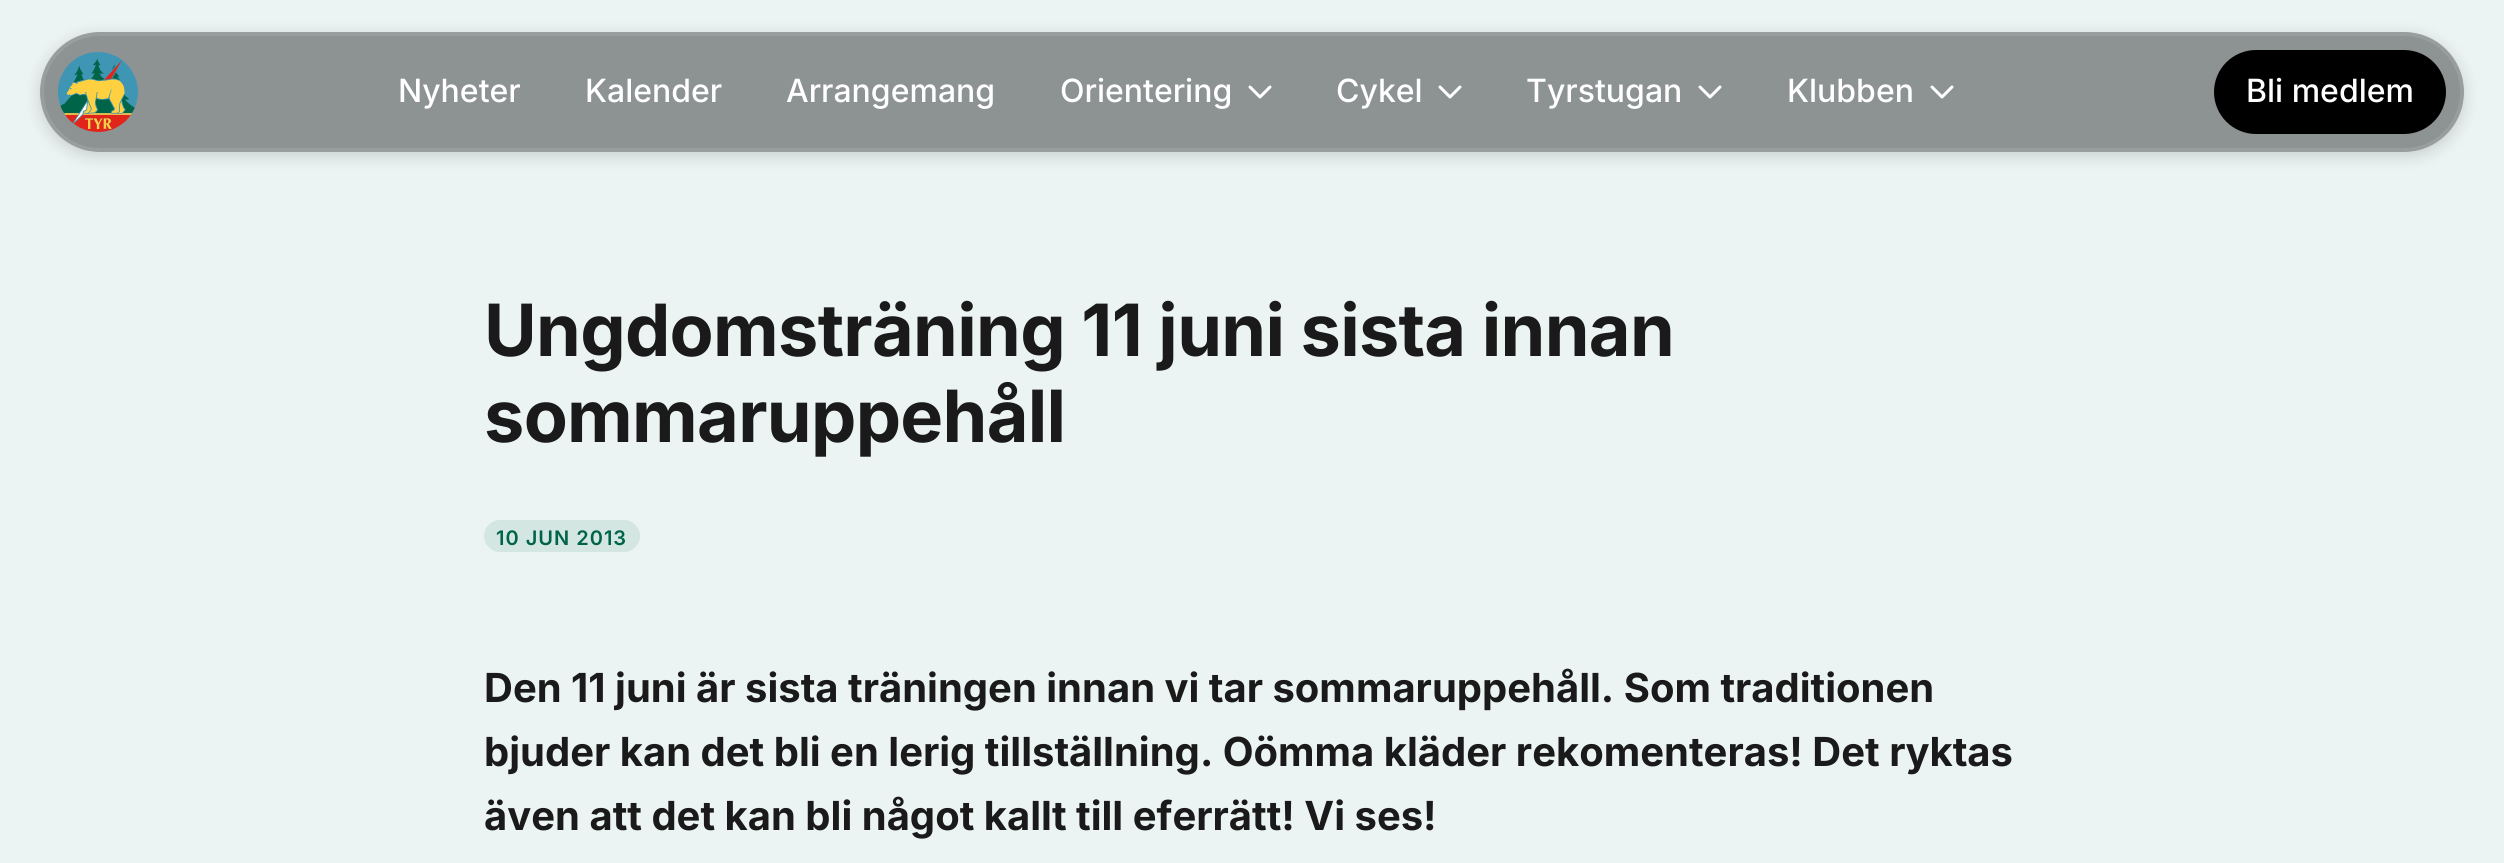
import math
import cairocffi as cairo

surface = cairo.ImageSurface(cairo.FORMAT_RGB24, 2504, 863)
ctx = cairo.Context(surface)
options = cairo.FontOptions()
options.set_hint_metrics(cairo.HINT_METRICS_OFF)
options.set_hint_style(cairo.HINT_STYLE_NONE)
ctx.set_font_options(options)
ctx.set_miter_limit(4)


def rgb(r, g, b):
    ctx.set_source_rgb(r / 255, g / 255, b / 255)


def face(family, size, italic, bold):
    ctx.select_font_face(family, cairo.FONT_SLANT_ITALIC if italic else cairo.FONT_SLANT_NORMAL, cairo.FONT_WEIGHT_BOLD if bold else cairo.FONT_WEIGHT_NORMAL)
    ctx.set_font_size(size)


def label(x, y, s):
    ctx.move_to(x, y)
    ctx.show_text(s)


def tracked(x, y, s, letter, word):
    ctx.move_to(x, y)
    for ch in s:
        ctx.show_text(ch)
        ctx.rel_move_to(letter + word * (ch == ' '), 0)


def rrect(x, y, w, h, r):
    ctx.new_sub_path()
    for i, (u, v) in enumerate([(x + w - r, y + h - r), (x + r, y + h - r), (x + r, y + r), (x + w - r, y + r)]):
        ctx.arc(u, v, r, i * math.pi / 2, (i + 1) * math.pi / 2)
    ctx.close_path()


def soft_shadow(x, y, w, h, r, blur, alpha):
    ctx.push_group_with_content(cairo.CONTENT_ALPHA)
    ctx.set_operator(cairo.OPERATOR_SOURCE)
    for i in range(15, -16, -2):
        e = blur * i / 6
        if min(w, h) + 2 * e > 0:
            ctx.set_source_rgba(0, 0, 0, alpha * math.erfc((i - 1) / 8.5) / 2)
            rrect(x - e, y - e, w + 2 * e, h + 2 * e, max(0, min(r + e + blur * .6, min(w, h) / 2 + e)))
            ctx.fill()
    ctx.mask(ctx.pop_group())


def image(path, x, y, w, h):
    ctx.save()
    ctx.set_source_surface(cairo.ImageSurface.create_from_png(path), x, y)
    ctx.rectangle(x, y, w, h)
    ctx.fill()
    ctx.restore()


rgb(235, 244, 243)
ctx.paint()
ctx.save()
ctx.set_fill_rule(cairo.FILL_RULE_EVEN_ODD)
ctx.new_path()
ctx.move_to(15, 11)
ctx.line_to(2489, 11)
ctx.line_to(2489, 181)
ctx.line_to(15, 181)
ctx.close_path()
ctx.move_to(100, 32)
ctx.line_to(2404, 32)
ctx.curve_to(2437, 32, 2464, 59, 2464, 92)
ctx.curve_to(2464, 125, 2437, 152, 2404, 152)
ctx.line_to(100, 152)
ctx.curve_to(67, 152, 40, 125, 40, 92)
ctx.curve_to(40, 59, 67, 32, 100, 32)
ctx.close_path()
ctx.clip()
rgb(0, 0, 0)
soft_shadow(40, 36, 2424, 120, 60, 8, 0.15)
ctx.restore()
ctx.set_source_rgba(0, 0, 0, 0.4)
rrect(40, 32, 2424, 120, 60)
ctx.fill()
rrect(43, 35, 2418, 114, 57)
rgb(152, 157, 157)
ctx.stroke()
rrect(41, 33, 2422, 118, 59)
ctx.set_source_rgba(1, 1, 1, 0.1)
ctx.stroke()
image('image0.png', 58, 52, 80, 80)
face('Inter Medium', 32, 0, 0)
rgb(255, 255, 255)
label(398, 102, 'Nyheter')
label(585, 102, 'Kalender')
label(786, 102, 'Arrangemang')
label(1060, 102, 'Orientering')
ctx.new_path()
ctx.move_to(1250, 87)
ctx.line_to(1260, 97)
ctx.line_to(1270, 87)
ctx.set_line_width(3)
ctx.set_line_cap(cairo.LINE_CAP_ROUND)
ctx.set_line_join(cairo.LINE_JOIN_ROUND)
ctx.stroke()
label(1336, 102, 'Cykel')
ctx.new_path()
ctx.move_to(1440, 87)
ctx.line_to(1450, 97)
ctx.line_to(1460, 87)
ctx.stroke()
label(1526, 102, 'Tyrstugan')
ctx.new_path()
ctx.move_to(1700, 87)
ctx.line_to(1710, 97)
ctx.line_to(1720, 87)
ctx.stroke()
label(1787, 102, 'Klubben')
ctx.new_path()
ctx.move_to(1932, 87)
ctx.line_to(1942, 97)
ctx.line_to(1952, 87)
ctx.stroke()
rgb(0, 0, 0)
rrect(2214, 50, 232, 84, 42)
ctx.fill()
rgb(255, 255, 255)
label(2246, 102, 'Bli medlem')
face('Inter', 72, 0, 1)
rgb(26, 26, 26)
tracked(484, 356, 'Ungdomsträning 11 juni sista innan', -0.7, 0)
tracked(484, 442, 'sommaruppehåll', -0.7, 0)
rgb(212, 230, 226)
rrect(484, 520, 156, 32, 16)
ctx.fill()
face('Inter SemiBold', 20, 0, 0)
rgb(1, 100, 73)
tracked(496, 545, '10 JUN 2013', 1, 0)
face('Inter', 40, 0, 1)
rgb(26, 26, 26)
label(484, 702, 'Den 11 juni är sista träningen innan vi tar sommaruppehåll. Som traditionen')
label(484, 766, 'bjuder kan det bli en lerig tillställning. Oömma kläder rekomenteras! Det ryktas')
label(484, 830, 'även att det kan bli något kallt till eferrätt! Vi ses!')
surface.write_to_png('render.png')
